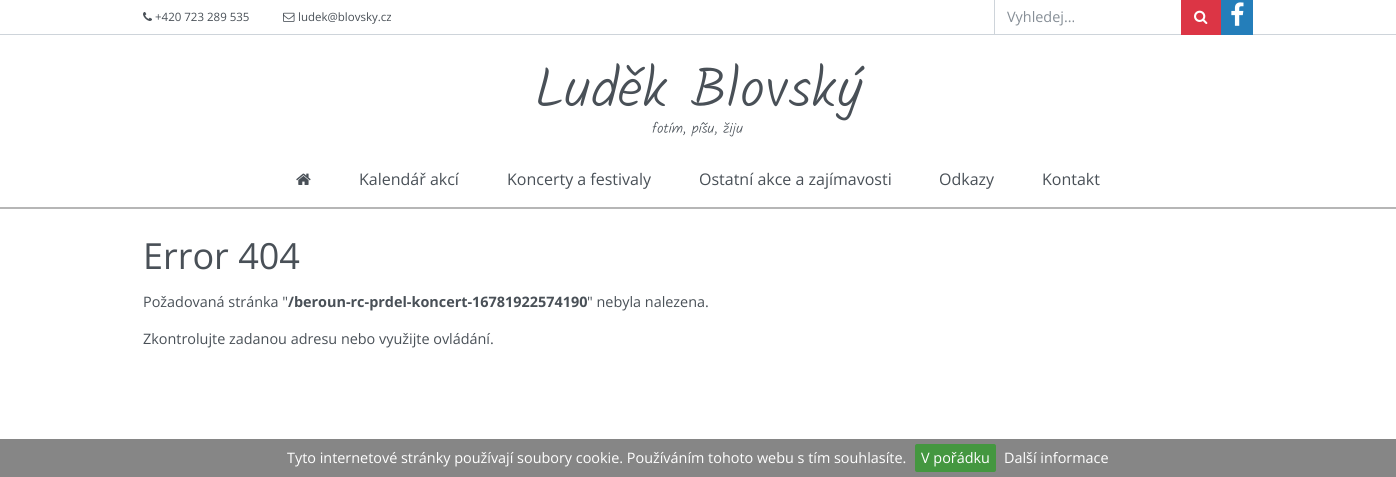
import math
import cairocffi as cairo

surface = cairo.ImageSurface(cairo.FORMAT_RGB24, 1396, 477)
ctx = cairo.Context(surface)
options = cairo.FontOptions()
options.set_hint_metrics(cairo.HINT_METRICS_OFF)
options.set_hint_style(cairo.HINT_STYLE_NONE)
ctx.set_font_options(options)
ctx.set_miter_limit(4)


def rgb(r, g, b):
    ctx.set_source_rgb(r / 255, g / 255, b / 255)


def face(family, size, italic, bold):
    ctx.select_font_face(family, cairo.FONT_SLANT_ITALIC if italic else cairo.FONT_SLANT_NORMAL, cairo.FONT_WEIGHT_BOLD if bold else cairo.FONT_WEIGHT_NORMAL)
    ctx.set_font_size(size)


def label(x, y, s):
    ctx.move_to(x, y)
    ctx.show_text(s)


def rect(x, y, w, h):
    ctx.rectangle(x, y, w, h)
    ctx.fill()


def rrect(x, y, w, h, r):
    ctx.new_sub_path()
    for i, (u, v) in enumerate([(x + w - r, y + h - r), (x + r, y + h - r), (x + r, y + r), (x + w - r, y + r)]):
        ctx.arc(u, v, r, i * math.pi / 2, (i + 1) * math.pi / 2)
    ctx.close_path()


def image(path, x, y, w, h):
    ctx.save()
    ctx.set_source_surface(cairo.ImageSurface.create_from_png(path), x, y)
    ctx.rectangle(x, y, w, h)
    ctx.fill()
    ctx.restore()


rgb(255, 255, 255)
ctx.paint()
rgb(206, 212, 218)
rect(0, 34, 1396, 1)
image('image0.png', 143, 12, 9, 9)
face('Open Sans', 11.5, 0, 0)
rgb(73, 80, 87)
label(155, 21, '+420 723 289 535')
image('image1.png', 283, 12, 12, 10)
label(298, 21, 'ludek@blovsky.cz')
rgb(206, 212, 218)
rect(994, 0, 1, 34)
face('Open Sans', 14.4, 0, 0)
rgb(134, 142, 150)
label(1007, 22, 'Vyhledej...')
rgb(220, 53, 69)
rect(1181, 0, 40, 35)
image('image2.png', 1194, 10, 14, 14)
rgb(36, 126, 186)
rect(1221, 0, 32, 35)
image('image3.png', 1231, 2, 13, 24)
face('Kalam Light', 56, 0, 0)
rgb(73, 80, 87)
label(534, 107, 'Luděk Blovský')
face('Kalam Light', 14.4, 0, 0)
label(652, 133, 'fotím, píšu, žiju')
image('image4.png', 296, 173, 15, 12)
face('Open Sans', 16, 0, 0)
label(359, 185, 'Kalendář akcí')
label(507, 185, 'Koncerty a festivaly')
label(699, 185, 'Ostatní akce a zajímavosti')
label(939, 185, 'Odkazy')
label(1042, 185, 'Kontakt')
rgb(182, 182, 182)
rect(0, 207, 1396, 2)
face('Open Sans', 36, 0, 0)
rgb(73, 80, 87)
label(143, 269, 'Error 404')
face('Open Sans', 14.4, 0, 0)
label(143, 307, 'Požadovaná stránka "')
face('Open Sans', 14.4, 0, 1)
label(288, 307, '/beroun-rc-prdel-koncert-16781922574190')
face('Open Sans', 14.4, 0, 0)
label(587, 307, '" nebyla nalezena.')
label(143, 344, 'Zkontrolujte zadanou adresu nebo využijte ovládání.')
rgb(134, 134, 134)
rect(0, 439, 1396, 38)
rgb(255, 255, 255)
label(287, 463, 'Tyto internetové stránky používají soubory cookie. Používáním tohoto webu s tím souhlasíte.')
rgb(68, 151, 64)
rrect(915, 444, 81, 28, 2)
ctx.fill()
rgb(255, 255, 255)
label(921, 463, 'V pořádku')
label(1004, 463, 'Další informace')
surface.write_to_png('render.png')
